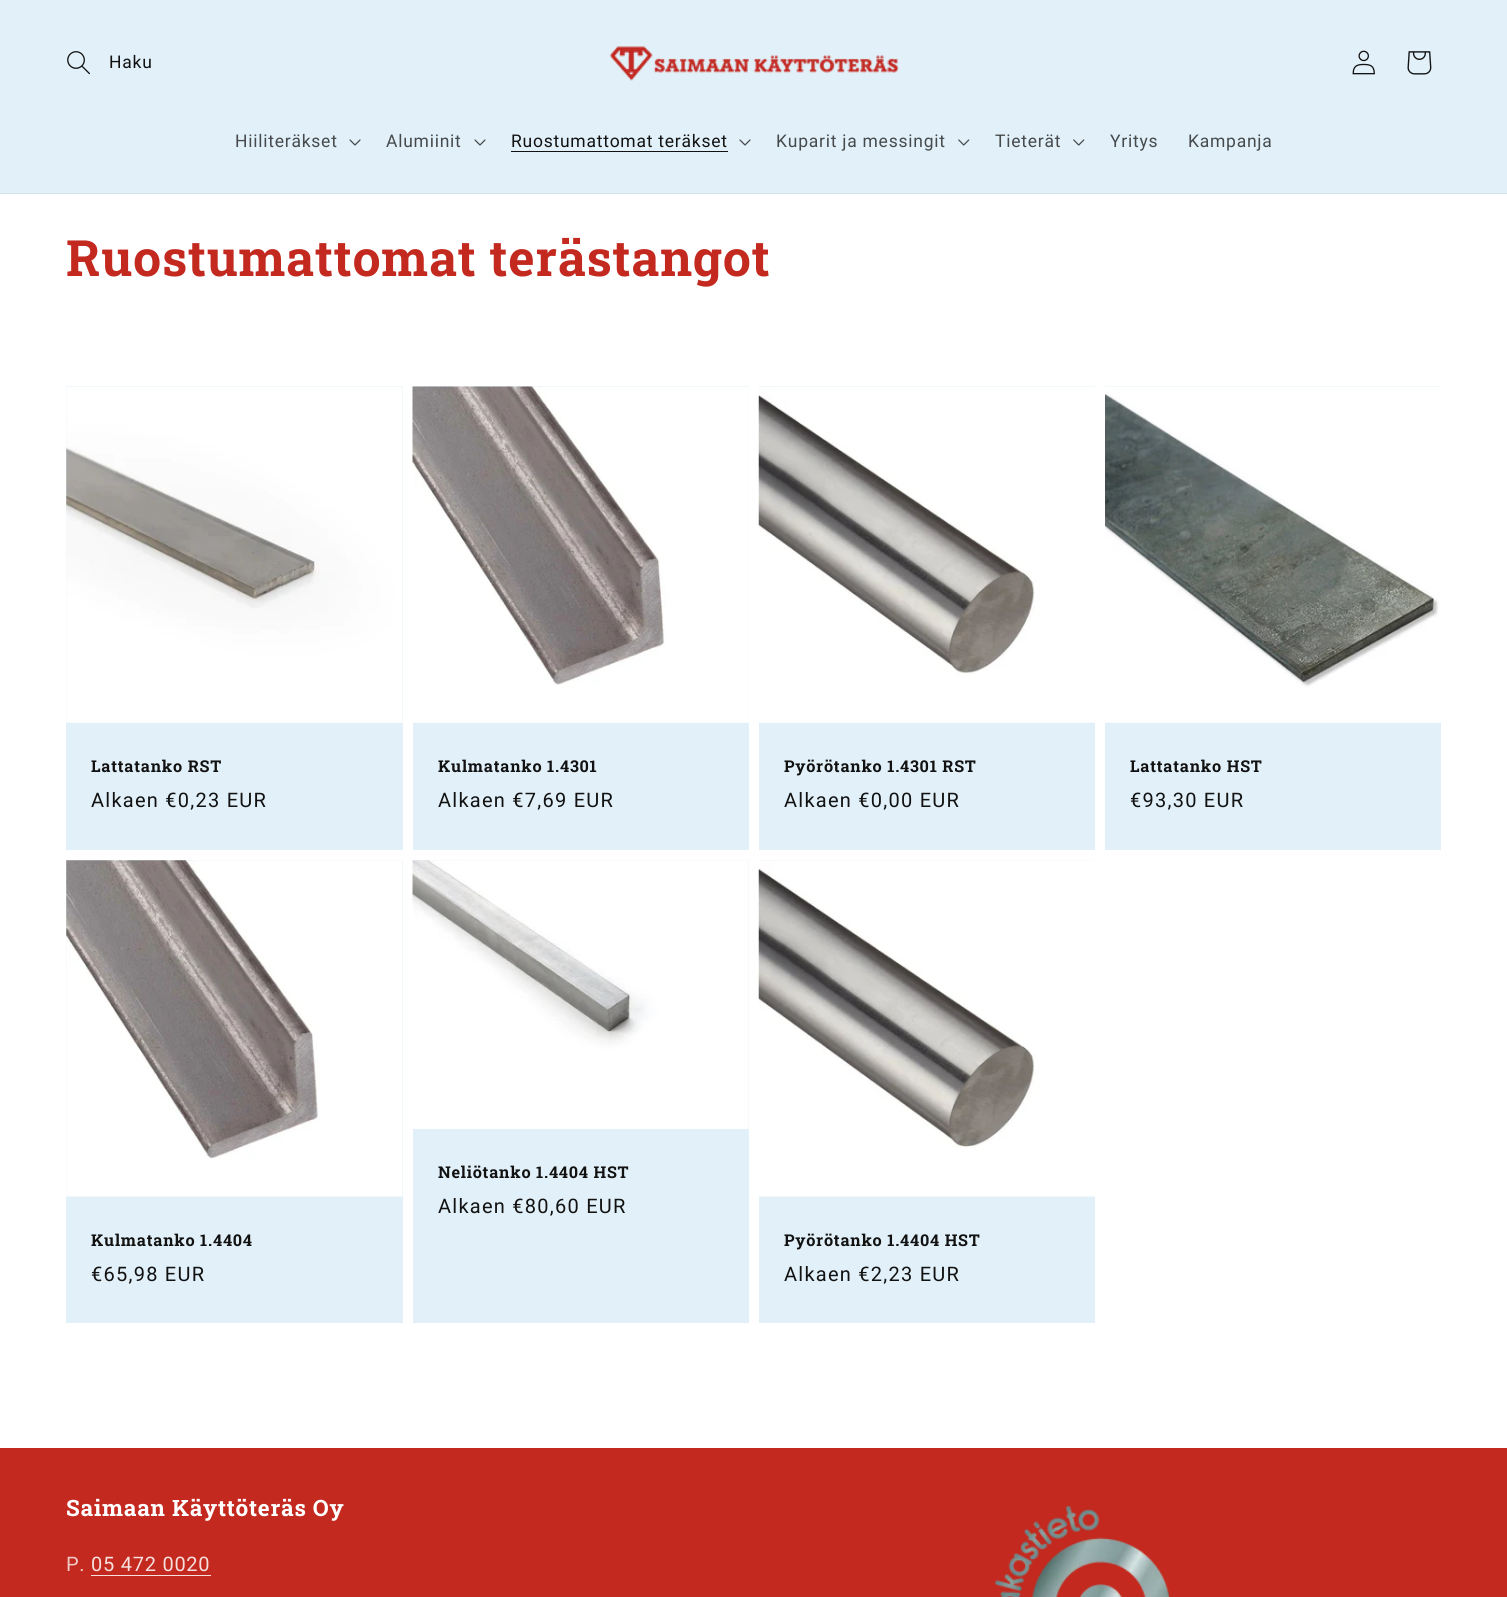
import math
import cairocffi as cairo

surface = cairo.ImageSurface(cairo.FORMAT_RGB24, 1507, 1597)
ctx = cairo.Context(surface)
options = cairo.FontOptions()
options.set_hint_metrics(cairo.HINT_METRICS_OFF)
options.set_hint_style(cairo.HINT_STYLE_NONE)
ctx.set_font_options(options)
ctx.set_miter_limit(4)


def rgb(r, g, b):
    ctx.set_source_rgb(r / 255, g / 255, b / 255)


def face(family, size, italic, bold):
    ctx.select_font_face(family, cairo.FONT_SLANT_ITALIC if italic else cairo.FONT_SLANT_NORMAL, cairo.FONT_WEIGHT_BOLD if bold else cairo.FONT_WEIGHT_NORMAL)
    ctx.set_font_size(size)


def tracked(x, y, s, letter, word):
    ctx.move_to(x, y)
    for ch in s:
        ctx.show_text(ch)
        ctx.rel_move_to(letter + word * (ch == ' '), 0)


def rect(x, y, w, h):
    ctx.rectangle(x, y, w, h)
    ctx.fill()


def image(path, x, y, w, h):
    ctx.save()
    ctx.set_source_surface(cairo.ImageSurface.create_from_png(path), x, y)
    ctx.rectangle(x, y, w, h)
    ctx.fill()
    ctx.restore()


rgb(226, 241, 249)
ctx.paint()
rgb(209, 223, 231)
rect(0, 193, 1507, 1)
image('image0.png', 67, 51, 23, 24)
face('Roboto', 17.5, 0, 0)
rgb(18, 18, 18)
tracked(109, 68, 'Haku', 0.75, 0)
image('image1.png', 609, 46, 290, 35)
image('image2.png', 1352, 50, 23, 25)
image('image3.png', 1407, 51, 25, 24)
rgb(70, 74, 76)
tracked(235, 147, 'Hiiliteräkset', 0.75, 0)
image('image4.png', 349, 139, 12, 7)
tracked(386, 147, 'Alumiinit', 0.75, 0)
image('image4.png', 474, 139, 12, 7)
rgb(18, 18, 18)
tracked(511, 147, 'Ruostumattomat teräkset', 0.75, 0)
rect(511, 151, 217, 1)
image('image4.png', 739, 139, 12, 7)
rgb(70, 74, 76)
tracked(776, 147, 'Kuparit ja messingit', 0.75, 0)
image('image5.png', 958, 139, 12, 7)
tracked(995, 147, 'Tieterät', 0.75, 0)
image('image5.png', 1073, 139, 12, 7)
tracked(1110, 147, 'Yritys', 0.75, 0)
tracked(1188, 147, 'Kampanja', 0.75, 0)
rgb(255, 255, 255)
rect(0, 194, 1507, 1254)
face('Roboto Slab', 50, 0, 1)
rgb(195, 41, 31)
tracked(66, 276, 'Ruostumattomat terästangot', 0.75, 0)
rgb(226, 241, 249)
rect(66, 386, 337, 464)
image('image6.png', 66, 386, 337, 337)
face('Roboto Slab', 16.25, 0, 1)
rgb(18, 18, 18)
tracked(91, 772, 'Lattatanko RST', 0.75, 0)
face('Roboto', 20, 0, 0)
tracked(91, 807, 'Alkaen €0,23 EUR', 1.25, 0)
rgb(226, 241, 249)
rect(413, 386, 336, 464)
image('image7.png', 412, 386, 337, 337)
face('Roboto Slab', 16.25, 0, 1)
rgb(18, 18, 18)
tracked(438, 772, 'Kulmatanko 1.4301', 0.75, 0)
face('Roboto', 20, 0, 0)
tracked(438, 807, 'Alkaen €7,69 EUR', 1.25, 0)
rgb(226, 241, 249)
rect(759, 386, 336, 464)
image('image8.png', 758, 386, 337, 337)
face('Roboto Slab', 16.25, 0, 1)
rgb(18, 18, 18)
tracked(784, 772, 'Pyörötanko 1.4301 RST', 0.75, 0)
face('Roboto', 20, 0, 0)
tracked(784, 807, 'Alkaen €0,00 EUR', 1.25, 0)
rgb(226, 241, 249)
rect(1105, 386, 336, 464)
image('image9.png', 1105, 386, 336, 337)
face('Roboto Slab', 16.25, 0, 1)
rgb(18, 18, 18)
tracked(1130, 772, 'Lattatanko HST', 0.75, 0)
face('Roboto', 20, 0, 0)
tracked(1130, 807, '€93,30 EUR', 1.25, 0)
rgb(226, 241, 249)
rect(413, 860, 336, 463)
image('image10.png', 412, 860, 337, 269)
face('Roboto Slab', 16.25, 0, 1)
rgb(18, 18, 18)
tracked(438, 1178, 'Neliötanko 1.4404 HST', 0.75, 0)
face('Roboto', 20, 0, 0)
tracked(438, 1213, 'Alkaen €80,60 EUR', 1.25, 0)
rgb(226, 241, 249)
rect(66, 860, 337, 463)
image('image11.png', 66, 860, 337, 337)
face('Roboto Slab', 16.25, 0, 1)
rgb(18, 18, 18)
tracked(91, 1246, 'Kulmatanko 1.4404', 0.75, 0)
face('Roboto', 20, 0, 0)
tracked(91, 1281, '€65,98 EUR', 1.25, 0)
rgb(226, 241, 249)
rect(759, 860, 336, 463)
image('image12.png', 758, 860, 337, 337)
face('Roboto Slab', 16.25, 0, 1)
rgb(18, 18, 18)
tracked(784, 1246, 'Pyörötanko 1.4404 HST', 0.75, 0)
face('Roboto', 20, 0, 0)
tracked(784, 1281, 'Alkaen €2,23 EUR', 1.25, 0)
rgb(195, 41, 31)
rect(0, 1448, 1507, 149)
face('Roboto Slab', 22.5, 0, 1)
rgb(255, 255, 255)
tracked(66, 1516, 'Saimaan Käyttöteräs Oy', 0.75, 0)
face('Roboto', 20, 0, 0)
rgb(240, 202, 199)
tracked(66, 1571, 'P.', 0.75, 0)
rgb(246, 223, 221)
tracked(91, 1571, '05 472 0020', 0.75, 0)
rect(91, 1575, 120, 1)
image('image13.png', 995, 1505, 175, 92)
surface.write_to_png('render.png')
